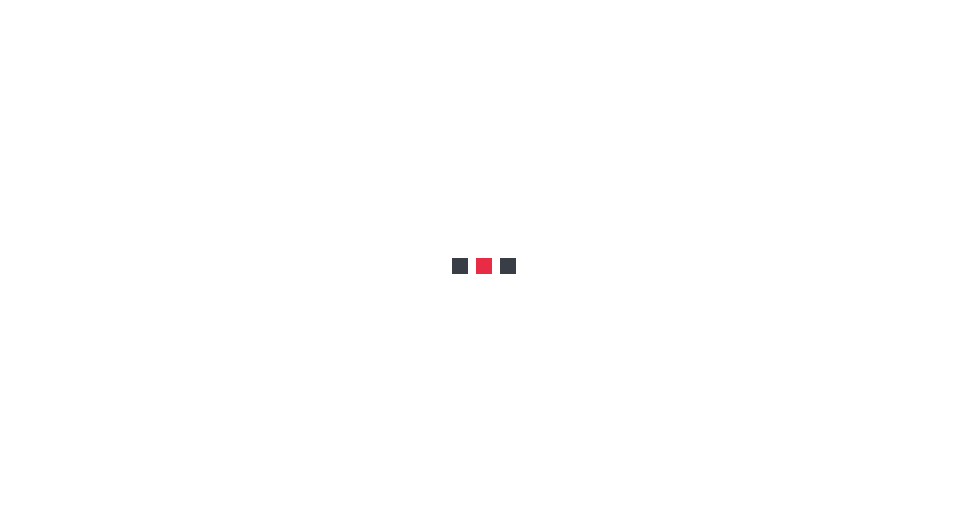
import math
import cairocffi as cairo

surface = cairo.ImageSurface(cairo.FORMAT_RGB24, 968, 532)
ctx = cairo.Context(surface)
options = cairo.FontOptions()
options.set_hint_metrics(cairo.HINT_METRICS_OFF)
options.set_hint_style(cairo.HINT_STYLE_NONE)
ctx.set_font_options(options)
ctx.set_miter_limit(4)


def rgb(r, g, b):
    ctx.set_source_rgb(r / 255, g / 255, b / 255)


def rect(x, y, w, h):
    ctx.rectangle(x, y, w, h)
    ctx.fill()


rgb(255, 255, 255)
ctx.paint()
rgb(232, 44, 69)
rect(476, 258, 16, 16)
rgb(57, 62, 70)
rect(452, 258, 16, 16)
rect(500, 258, 16, 16)
surface.write_to_png('render.png')
